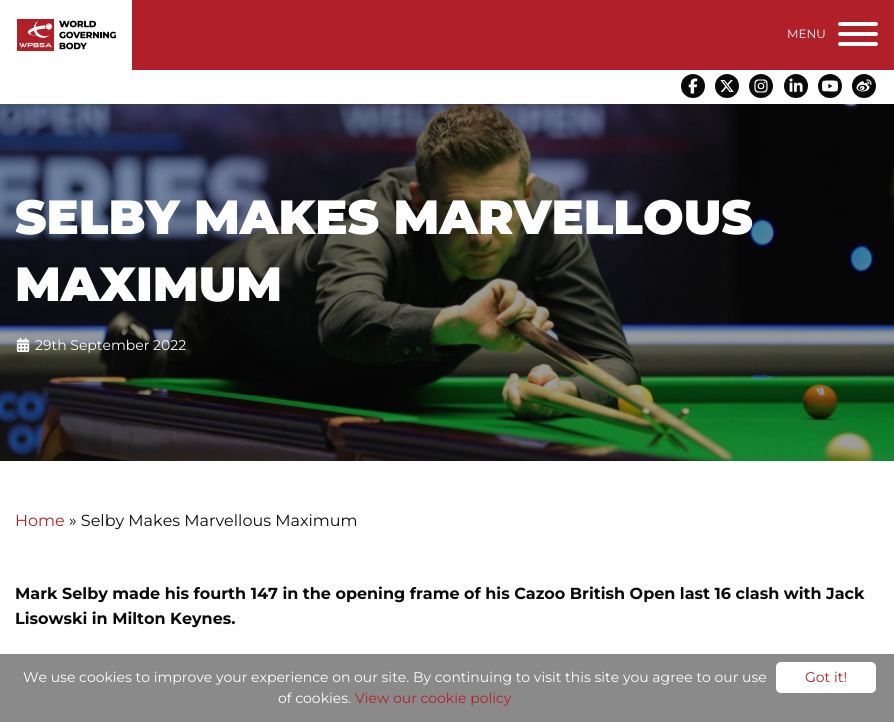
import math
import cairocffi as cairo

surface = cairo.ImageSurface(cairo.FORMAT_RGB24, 894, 722)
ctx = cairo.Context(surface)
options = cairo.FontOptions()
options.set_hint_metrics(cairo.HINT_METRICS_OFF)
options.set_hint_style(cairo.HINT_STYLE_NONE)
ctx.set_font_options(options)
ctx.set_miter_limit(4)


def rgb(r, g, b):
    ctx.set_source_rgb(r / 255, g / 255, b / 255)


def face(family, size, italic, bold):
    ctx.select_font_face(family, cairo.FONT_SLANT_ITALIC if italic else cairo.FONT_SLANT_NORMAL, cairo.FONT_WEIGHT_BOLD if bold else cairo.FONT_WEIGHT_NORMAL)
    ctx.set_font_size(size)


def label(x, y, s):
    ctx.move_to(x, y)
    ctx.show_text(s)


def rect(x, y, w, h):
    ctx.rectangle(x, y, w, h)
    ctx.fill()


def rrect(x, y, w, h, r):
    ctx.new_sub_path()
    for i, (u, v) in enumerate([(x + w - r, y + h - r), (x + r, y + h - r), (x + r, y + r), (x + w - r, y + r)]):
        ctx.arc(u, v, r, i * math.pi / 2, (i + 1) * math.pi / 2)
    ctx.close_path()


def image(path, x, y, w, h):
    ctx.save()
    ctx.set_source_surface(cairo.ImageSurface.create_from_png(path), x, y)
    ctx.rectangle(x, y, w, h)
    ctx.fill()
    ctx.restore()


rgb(255, 255, 255)
ctx.paint()
rgb(177, 32, 40)
rect(132, 0, 762, 70)
image('image0.png', 17, 19, 99, 32)
face('Montserrat Thin', 12, 0, 0)
rgb(254, 254, 254)
label(787, 38, 'MENU')
rrect(838, 32, 40, 4, 2)
ctx.fill()
rrect(838, 22, 40, 4, 2)
ctx.fill()
rrect(838, 42, 40, 4, 2)
ctx.fill()
image('image1.png', 681, 74, 24, 24)
image('image2.png', 715, 74, 24, 24)
image('image3.png', 749, 74, 24, 24)
image('image4.png', 784, 74, 24, 24)
image('image5.png', 818, 74, 24, 24)
image('image6.png', 852, 74, 24, 24)
image('image7.png', 0, 104, 894, 357)
face('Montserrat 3 Thin', 48, 0, 0)
label(15, 234, 'SELBY MAKES MARVELLOUS')
label(15, 301, 'MAXIMUM')
image('image8.png', 16, 338, 14, 14)
face('Montserrat Thin', 14, 0, 0)
label(35, 350, '29th September 2022')
face('Montserrat Thin', 16, 0, 0)
rgb(177, 32, 40)
label(15, 526, 'Home')
rgb(10, 10, 10)
label(69, 526, '» Selby Makes Marvellous Maximum')
face('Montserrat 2 Thin', 16, 0, 0)
label(15, 599, 'Mark Selby made his fourth 147 in the opening frame of his Cazoo British Open last 16 clash with Jack')
label(15, 624, 'Lisowski in Milton Keynes.')
rgb(138, 138, 138)
rect(0, 654, 894, 68)
face('Montserrat Thin', 14, 0, 0)
rgb(254, 254, 254)
label(23, 682, 'We use cookies to improve your experience on our site. By continuing to visit this site you agree to our use')
label(278, 703, 'of cookies.')
rgb(177, 32, 40)
label(355, 703, 'View our cookie policy')
rgb(255, 255, 255)
rrect(776, 662, 100, 31, 5)
ctx.fill()
rgb(177, 32, 40)
label(805, 682, 'Got it!')
surface.write_to_png('render.png')
